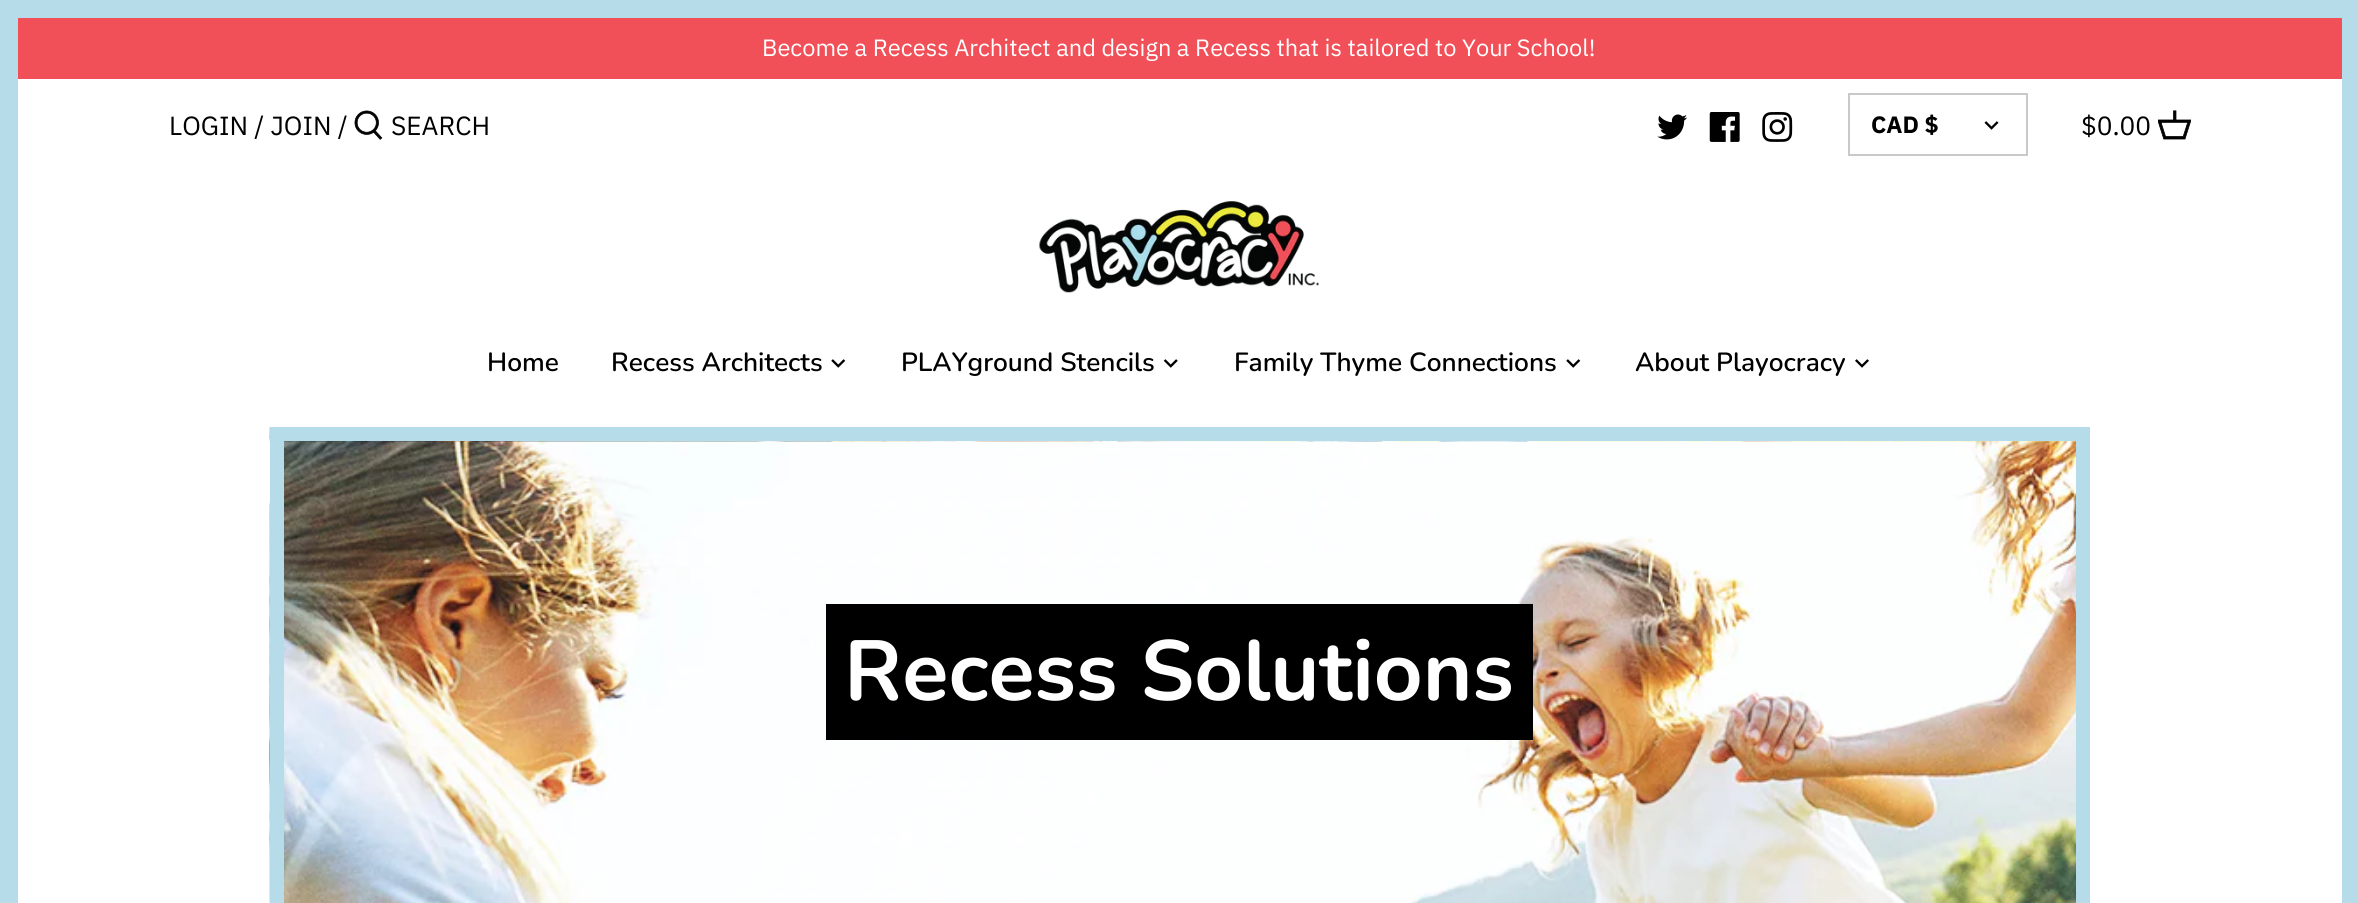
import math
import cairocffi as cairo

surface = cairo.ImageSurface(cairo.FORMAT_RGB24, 2358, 903)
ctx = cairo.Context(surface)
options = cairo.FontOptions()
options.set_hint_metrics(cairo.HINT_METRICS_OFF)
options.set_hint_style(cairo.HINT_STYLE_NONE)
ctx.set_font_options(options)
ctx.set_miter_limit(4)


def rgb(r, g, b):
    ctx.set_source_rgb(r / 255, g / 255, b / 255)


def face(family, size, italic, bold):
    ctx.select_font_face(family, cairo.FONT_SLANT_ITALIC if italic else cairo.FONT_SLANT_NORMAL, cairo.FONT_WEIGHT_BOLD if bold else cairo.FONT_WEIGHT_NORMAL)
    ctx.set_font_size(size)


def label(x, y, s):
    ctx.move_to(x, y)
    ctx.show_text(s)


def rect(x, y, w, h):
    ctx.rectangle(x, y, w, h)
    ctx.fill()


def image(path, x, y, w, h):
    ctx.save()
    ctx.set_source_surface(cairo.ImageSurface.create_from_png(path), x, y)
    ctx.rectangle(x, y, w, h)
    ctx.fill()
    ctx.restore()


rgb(181, 220, 232)
ctx.paint()
rgb(255, 255, 255)
rect(18, 79, 2324, 824)
rgb(241, 80, 89)
rect(18, 18, 2324, 61)
face('IBM Plex Sans', 23.6, 0, 0)
rgb(255, 255, 255)
label(762, 56, 'Become a Recess Architect and design a Recess that is tailored to Your School!')
face('IBM Plex Sans', 26.25, 0, 0)
rgb(0, 0, 0)
label(169, 135, 'LOGIN / JOIN /')
image('image0.png', 354, 110, 29, 30)
label(391, 135, 'SEARCH')
image('image1.png', 1657, 114, 30, 26)
image('image2.png', 1709, 112, 31, 30)
image('image3.png', 1762, 112, 31, 30)
ctx.rectangle(1849, 94, 178, 61)
rgb(201, 201, 201)
ctx.stroke()
face('IBM Plex Sans', 23.6, 0, 1)
rgb(0, 0, 0)
label(1871, 133, 'CAD $')
image('image4.png', 1984, 121, 15, 9)
face('IBM Plex Sans', 26.25, 0, 0)
label(2081, 135, '$0.00')
image('image5.png', 2158, 110, 33, 30)
image('image6.png', 1039, 201, 280, 92)
face('Nunito SemiBold', 26.25, 0, 0)
label(487, 371, 'Home')
label(611, 371, 'Recess Architects')
image('image7.png', 831, 359, 15, 9)
label(901, 371, 'PLAYground Stencils')
image('image8.png', 1163, 359, 15, 9)
label(1234, 371, 'Family Thyme Connections')
image('image7.png', 1566, 359, 15, 9)
label(1635, 371, 'About Playocracy')
image('image9.png', 1855, 359, 14, 9)
image('image10.png', 269, 427, 1807, 476)
ctx.rectangle(277, 434, 1806, 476)
rgb(181, 220, 232)
ctx.set_line_width(14)
ctx.stroke()
rgb(0, 0, 0)
rect(826, 604, 707, 136)
face('Nunito', 85, 0, 1)
rgb(255, 255, 255)
label(844, 700, 'Recess Solutions')
surface.write_to_png('render.png')
